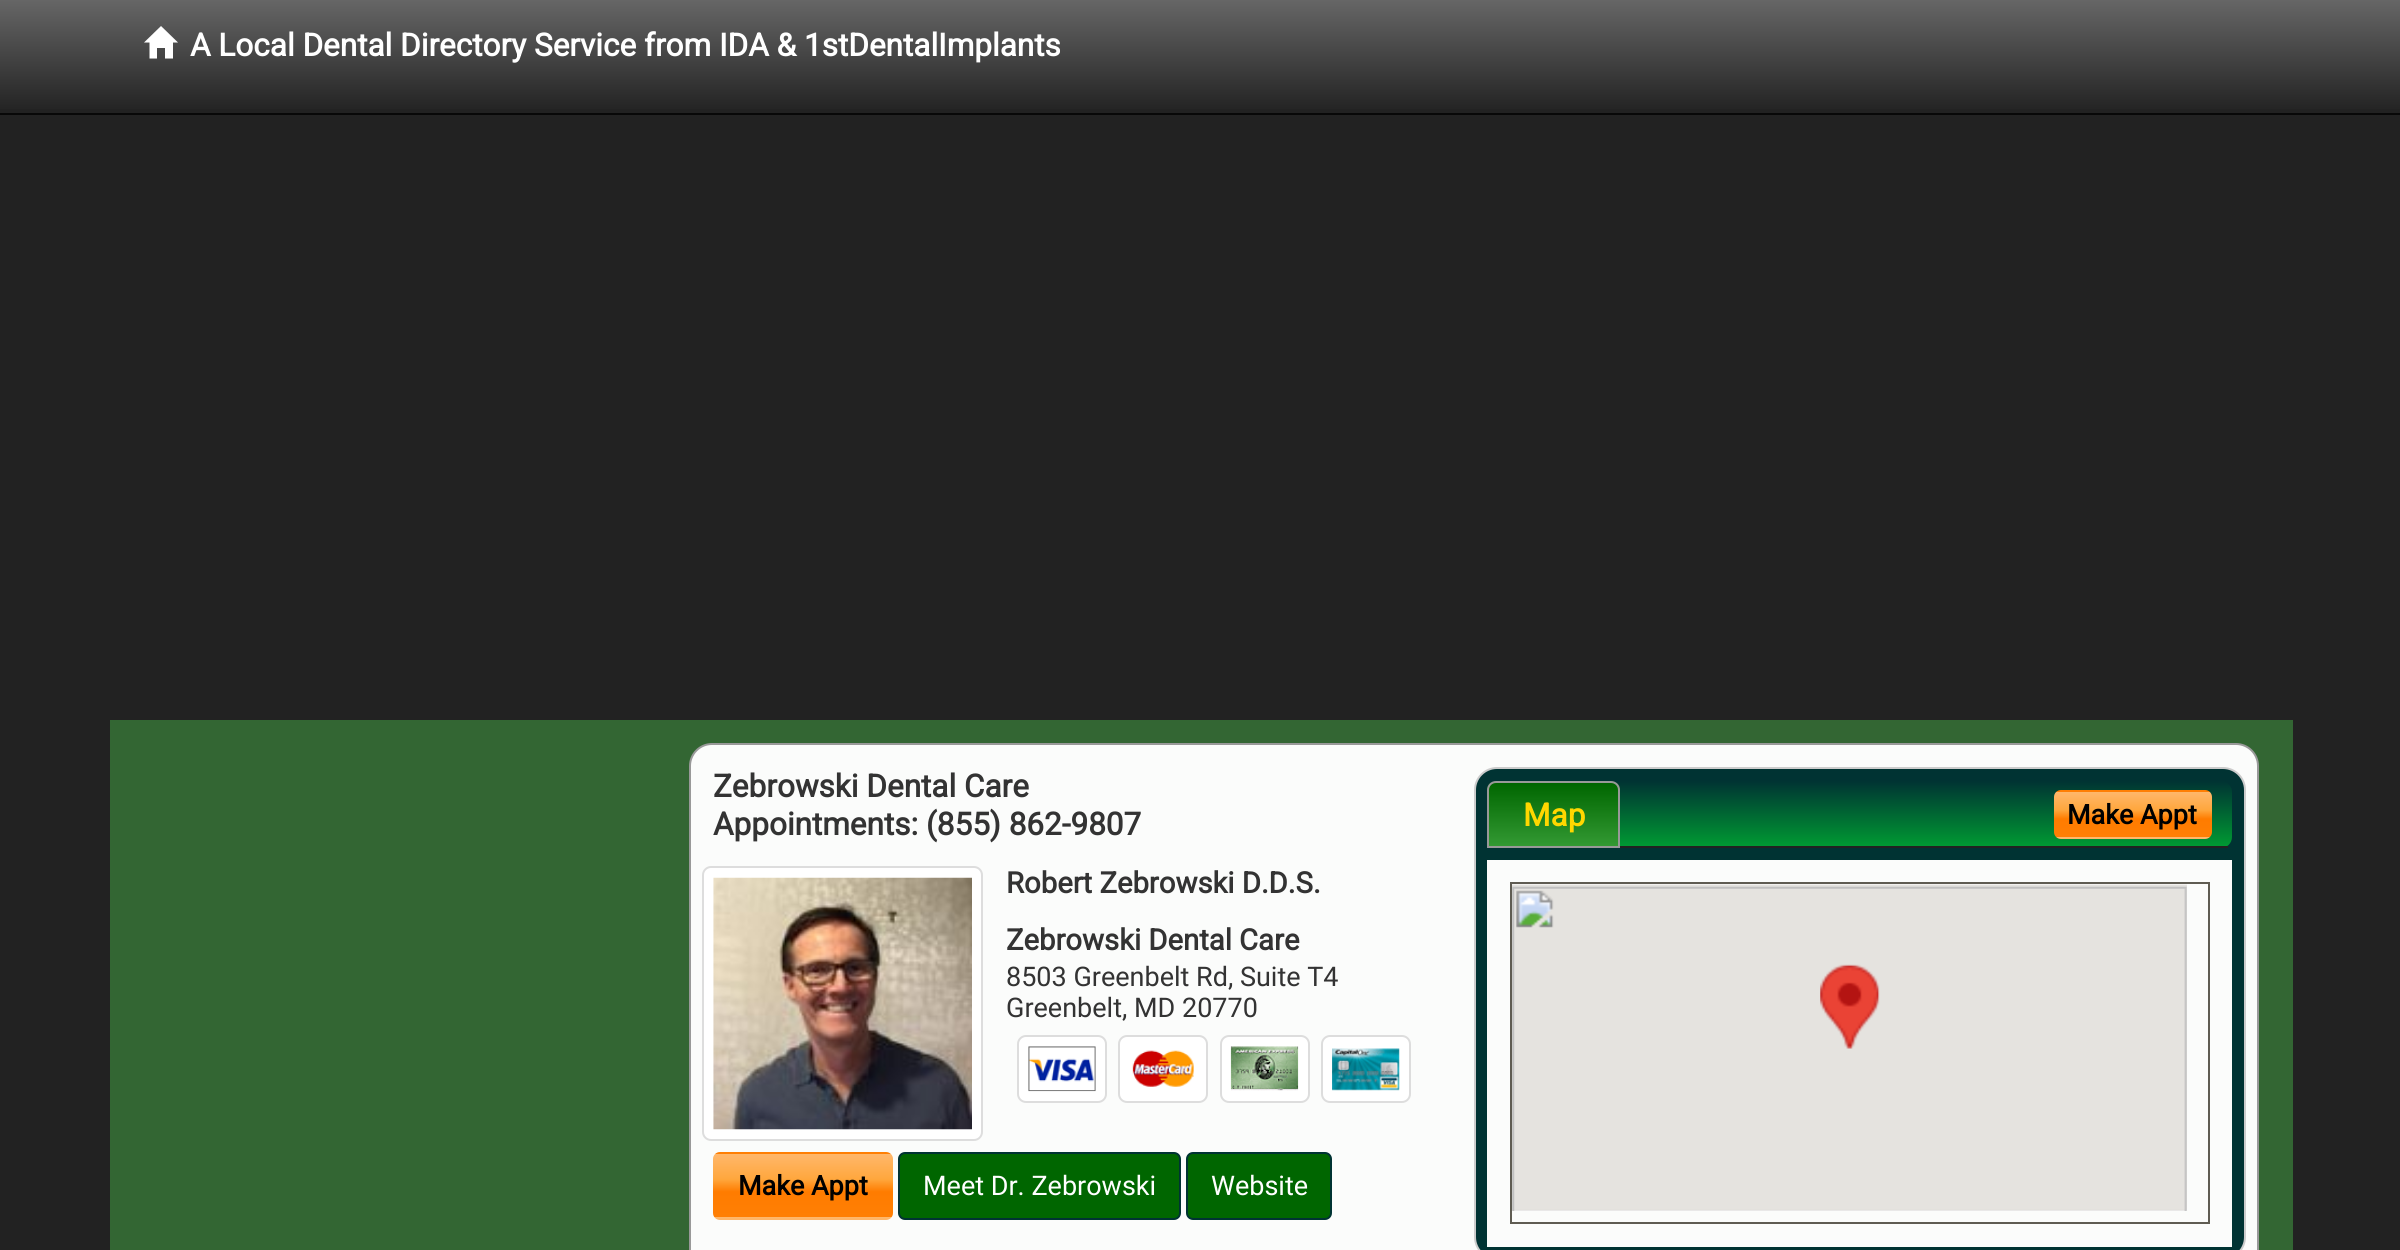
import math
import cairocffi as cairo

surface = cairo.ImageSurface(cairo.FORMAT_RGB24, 2400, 1250)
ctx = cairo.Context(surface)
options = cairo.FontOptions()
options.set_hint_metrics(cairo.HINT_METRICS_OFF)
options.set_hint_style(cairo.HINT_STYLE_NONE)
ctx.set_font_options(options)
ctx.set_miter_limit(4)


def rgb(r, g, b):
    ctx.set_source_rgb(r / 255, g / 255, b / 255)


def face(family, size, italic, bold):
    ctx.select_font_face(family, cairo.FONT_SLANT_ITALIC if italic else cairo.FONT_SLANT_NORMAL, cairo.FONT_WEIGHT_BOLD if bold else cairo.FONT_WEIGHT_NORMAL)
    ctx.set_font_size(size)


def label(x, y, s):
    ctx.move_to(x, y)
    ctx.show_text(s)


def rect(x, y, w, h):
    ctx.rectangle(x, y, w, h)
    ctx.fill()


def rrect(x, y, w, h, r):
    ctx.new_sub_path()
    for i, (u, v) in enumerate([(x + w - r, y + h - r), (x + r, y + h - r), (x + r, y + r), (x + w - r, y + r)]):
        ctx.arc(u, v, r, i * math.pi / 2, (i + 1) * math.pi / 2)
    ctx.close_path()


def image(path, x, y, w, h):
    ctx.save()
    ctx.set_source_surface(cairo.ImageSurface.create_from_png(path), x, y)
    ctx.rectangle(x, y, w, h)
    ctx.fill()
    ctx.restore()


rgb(34, 34, 34)
ctx.paint()
gradient = cairo.LinearGradient(1200, 0, 1200, 113)
gradient.add_color_stop_rgba(0, 0.4, 0.4, 0.4, 1)
gradient.add_color_stop_rgba(1, 0.133, 0.133, 0.133, 1)
ctx.set_source(gradient)
rect(0, 0, 2400, 109)
rgb(8, 8, 8)
rect(0, 113, 2400, 2)
rgb(255, 255, 255)
ctx.new_path()
ctx.move_to(144, 42.5)
ctx.line_to(161, 26)
ctx.line_to(178, 42.5)
ctx.line_to(173, 42.5)
ctx.line_to(173, 58.5)
ctx.line_to(165, 58.5)
ctx.line_to(165, 48)
ctx.line_to(157, 48)
ctx.line_to(157, 58.5)
ctx.line_to(149.5, 58.5)
ctx.line_to(149.5, 42.5)
ctx.close_path()
ctx.fill()
face('Roboto', 31.5, 0, 1)
label(190, 56, 'A Local Dental Directory Service from IDA & 1stDentalImplants')
rgb(51, 102, 51)
rect(110, 720, 2183, 530)
rgb(251, 252, 251)
rrect(690, 744, 1568, 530, 22)
ctx.fill_preserve()
rgb(153, 153, 153)
ctx.stroke()
rgb(51, 51, 51)
label(713, 797, 'Zebrowski Dental Care')
label(713, 835, 'Appointments: (855) 862-9807')
rgb(255, 255, 255)
rrect(703, 867, 279, 273, 8)
ctx.fill_preserve()
rgb(221, 221, 221)
ctx.stroke()
image('image0.png', 713, 877, 259, 253)
face('Roboto', 29.25, 0, 1)
rgb(51, 51, 51)
label(1006, 893, 'Robert Zebrowski D.D.S.')
label(1006, 950, 'Zebrowski Dental Care')
face('Roboto', 27, 0, 0)
label(1006, 986, '8503 Greenbelt Rd, Suite T4')
label(1006, 1017, 'Greenbelt, MD 20770')
rgb(255, 255, 255)
rrect(1018, 1036, 88, 66, 8)
ctx.fill_preserve()
rgb(221, 221, 221)
ctx.stroke()
image('image1.png', 1028, 1046, 68, 46)
rgb(255, 255, 255)
rrect(1119, 1036, 88, 66, 8)
ctx.fill_preserve()
rgb(221, 221, 221)
ctx.stroke()
image('image2.png', 1132, 1050, 62, 37)
rgb(255, 255, 255)
rrect(1221, 1036, 88, 66, 8)
ctx.fill_preserve()
rgb(221, 221, 221)
ctx.stroke()
image('image3.png', 1230, 1046, 69, 45)
rgb(255, 255, 255)
rrect(1322, 1036, 88, 66, 8)
ctx.fill_preserve()
rgb(221, 221, 221)
ctx.stroke()
image('image4.png', 1332, 1048, 68, 43)
ctx.save()
rrect(713, 1152, 180, 68, 7)
ctx.clip()
gradient = cairo.LinearGradient(803, 1091, 803, 1154)
gradient.add_color_stop_rgba(0, 1, 0.718, 0.42, 1)
gradient.add_color_stop_rgba(0.4, 1, 0.655, 0.239, 1)
gradient.add_color_stop_rgba(0.6, 1, 0.486, 0, 1)
gradient.add_color_stop_rgba(1, 1, 0.498, 0.016, 1)
ctx.set_source(gradient)
rect(713, 1152, 180, 2)
gradient = cairo.LinearGradient(803, 1154, 803, 1217)
gradient.add_color_stop_rgba(0, 1, 0.718, 0.42, 1)
gradient.add_color_stop_rgba(0.4, 1, 0.655, 0.239, 1)
gradient.add_color_stop_rgba(0.6, 1, 0.486, 0, 1)
gradient.add_color_stop_rgba(1, 1, 0.498, 0.016, 1)
ctx.set_source(gradient)
rect(713, 1154, 180, 63)
gradient = cairo.LinearGradient(803, 1217, 803, 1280)
gradient.add_color_stop_rgba(0, 1, 0.718, 0.42, 1)
gradient.add_color_stop_rgba(0.4, 1, 0.655, 0.239, 1)
gradient.add_color_stop_rgba(0.6, 1, 0.486, 0, 1)
gradient.add_color_stop_rgba(1, 1, 0.498, 0.016, 1)
ctx.set_source(gradient)
rect(713, 1217, 180, 3)
ctx.restore()
face('Roboto', 27, 0, 1)
rgb(0, 0, 0)
label(738, 1195, 'Make Appt')
rgb(0, 102, 0)
rrect(899, 1153, 281, 66, 6)
ctx.fill_preserve()
rgb(0, 51, 51)
ctx.stroke()
face('Roboto', 27, 0, 0)
rgb(255, 255, 255)
label(923, 1195, 'Meet Dr. Zebrowski')
rgb(0, 102, 0)
rrect(1187, 1153, 144, 66, 6)
ctx.fill_preserve()
rgb(0, 51, 51)
ctx.stroke()
rgb(255, 255, 255)
label(1211, 1195, 'Website')
rgb(0, 51, 51)
rrect(1475, 768, 770, 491, 22)
ctx.fill_preserve()
rgb(204, 204, 204)
ctx.stroke()
ctx.save()
rrect(1487, 781, 745, 67, 11)
ctx.clip()
gradient = cairo.LinearGradient(1860, 781, 1860, 846)
gradient.add_color_stop_rgba(0, 0, 0.2, 0.2, 1)
gradient.add_color_stop_rgba(1, 0, 0.6, 0.2, 1)
ctx.set_source(gradient)
ctx.new_path()
ctx.move_to(1498, 781)
ctx.line_to(2221, 781)
ctx.curve_to(2227, 781, 2232, 786, 2232, 792)
ctx.line_to(2232, 846)
ctx.line_to(1487, 846)
ctx.line_to(1487, 792)
ctx.curve_to(1487, 786, 1492, 781, 1498, 781)
ctx.close_path()
ctx.fill()
ctx.restore()
rgb(34, 34, 34)
rect(1620, 846, 608, 2)
ctx.save()
ctx.new_path()
ctx.move_to(1496, 781)
ctx.line_to(1611, 781)
ctx.curve_to(1616, 781, 1620, 785, 1620, 790)
ctx.line_to(1620, 848)
ctx.line_to(1487, 848)
ctx.line_to(1487, 790)
ctx.curve_to(1487, 785, 1491, 781, 1496, 781)
ctx.close_path()
ctx.clip()
gradient = cairo.LinearGradient(1554, 783, 1554, 846)
gradient.add_color_stop_rgba(0, 0, 0.4, 0, 1)
gradient.add_color_stop_rgba(1, 0.2, 0.6, 0.2, 1)
ctx.set_source(gradient)
rect(1487, 783, 133, 63)
ctx.restore()
ctx.new_path()
ctx.move_to(1496, 782)
ctx.line_to(1611, 782)
ctx.curve_to(1615.5, 782, 1619, 785.5, 1619, 790)
ctx.line_to(1619, 847)
ctx.line_to(1488, 847)
ctx.line_to(1488, 790)
ctx.curve_to(1488, 785.5, 1491.5, 782, 1496, 782)
ctx.close_path()
rgb(153, 153, 153)
ctx.stroke()
face('Roboto', 31.5, 0, 1)
rgb(255, 215, 0)
label(1523, 826, 'Map')
rgb(251, 252, 251)
rect(1487, 860, 745, 387)
ctx.rectangle(1511, 883, 698, 340)
rgb(95, 92, 82)
ctx.stroke()
image('image5.png', 1512, 884, 675, 327)
ctx.save()
rrect(2054, 790, 158, 49, 7)
ctx.clip()
gradient = cairo.LinearGradient(2133, 747, 2133, 792)
gradient.add_color_stop_rgba(0, 1, 0.718, 0.42, 1)
gradient.add_color_stop_rgba(0.4, 1, 0.655, 0.239, 1)
gradient.add_color_stop_rgba(0.6, 1, 0.486, 0, 1)
gradient.add_color_stop_rgba(1, 1, 0.498, 0.016, 1)
ctx.set_source(gradient)
rect(2054, 790, 158, 2)
gradient = cairo.LinearGradient(2133, 792, 2133, 837)
gradient.add_color_stop_rgba(0, 1, 0.718, 0.42, 1)
gradient.add_color_stop_rgba(0.4, 1, 0.655, 0.239, 1)
gradient.add_color_stop_rgba(0.6, 1, 0.486, 0, 1)
gradient.add_color_stop_rgba(1, 1, 0.498, 0.016, 1)
ctx.set_source(gradient)
rect(2054, 792, 158, 45)
gradient = cairo.LinearGradient(2133, 837, 2133, 882)
gradient.add_color_stop_rgba(0, 1, 0.718, 0.42, 1)
gradient.add_color_stop_rgba(0.4, 1, 0.655, 0.239, 1)
gradient.add_color_stop_rgba(0.6, 1, 0.486, 0, 1)
gradient.add_color_stop_rgba(1, 1, 0.498, 0.016, 1)
ctx.set_source(gradient)
rect(2054, 837, 158, 2)
ctx.restore()
face('Roboto', 27, 0, 1)
rgb(0, 0, 0)
label(2067, 824, 'Make Appt')
surface.write_to_png('render.png')
